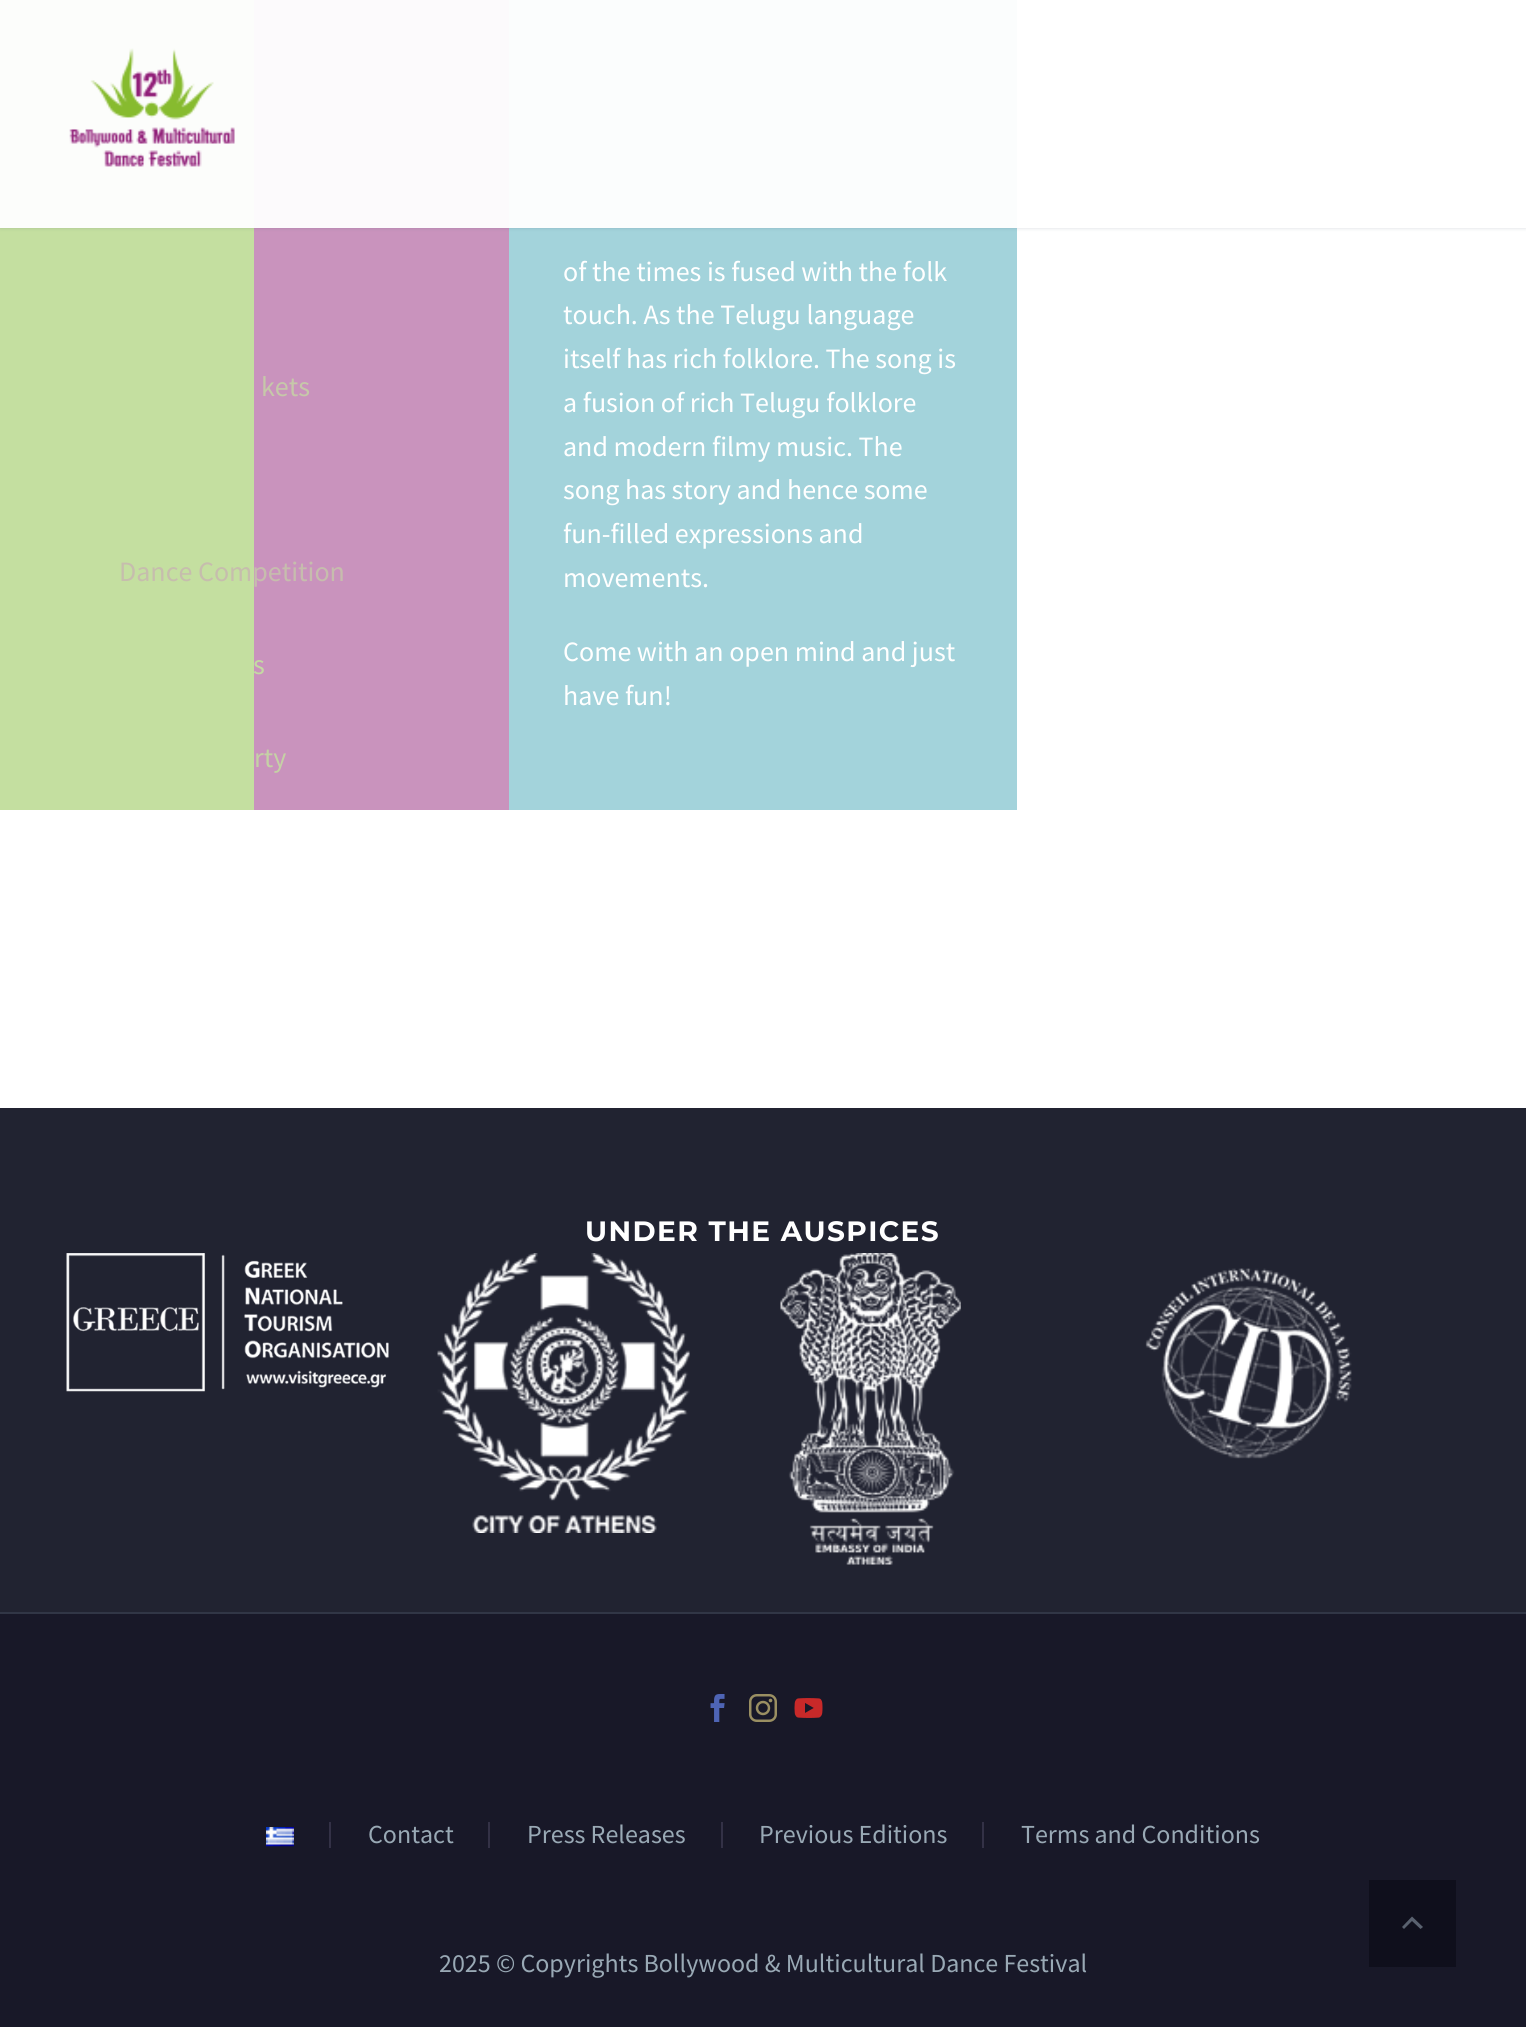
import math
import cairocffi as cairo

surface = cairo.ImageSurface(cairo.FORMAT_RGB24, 1526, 2027)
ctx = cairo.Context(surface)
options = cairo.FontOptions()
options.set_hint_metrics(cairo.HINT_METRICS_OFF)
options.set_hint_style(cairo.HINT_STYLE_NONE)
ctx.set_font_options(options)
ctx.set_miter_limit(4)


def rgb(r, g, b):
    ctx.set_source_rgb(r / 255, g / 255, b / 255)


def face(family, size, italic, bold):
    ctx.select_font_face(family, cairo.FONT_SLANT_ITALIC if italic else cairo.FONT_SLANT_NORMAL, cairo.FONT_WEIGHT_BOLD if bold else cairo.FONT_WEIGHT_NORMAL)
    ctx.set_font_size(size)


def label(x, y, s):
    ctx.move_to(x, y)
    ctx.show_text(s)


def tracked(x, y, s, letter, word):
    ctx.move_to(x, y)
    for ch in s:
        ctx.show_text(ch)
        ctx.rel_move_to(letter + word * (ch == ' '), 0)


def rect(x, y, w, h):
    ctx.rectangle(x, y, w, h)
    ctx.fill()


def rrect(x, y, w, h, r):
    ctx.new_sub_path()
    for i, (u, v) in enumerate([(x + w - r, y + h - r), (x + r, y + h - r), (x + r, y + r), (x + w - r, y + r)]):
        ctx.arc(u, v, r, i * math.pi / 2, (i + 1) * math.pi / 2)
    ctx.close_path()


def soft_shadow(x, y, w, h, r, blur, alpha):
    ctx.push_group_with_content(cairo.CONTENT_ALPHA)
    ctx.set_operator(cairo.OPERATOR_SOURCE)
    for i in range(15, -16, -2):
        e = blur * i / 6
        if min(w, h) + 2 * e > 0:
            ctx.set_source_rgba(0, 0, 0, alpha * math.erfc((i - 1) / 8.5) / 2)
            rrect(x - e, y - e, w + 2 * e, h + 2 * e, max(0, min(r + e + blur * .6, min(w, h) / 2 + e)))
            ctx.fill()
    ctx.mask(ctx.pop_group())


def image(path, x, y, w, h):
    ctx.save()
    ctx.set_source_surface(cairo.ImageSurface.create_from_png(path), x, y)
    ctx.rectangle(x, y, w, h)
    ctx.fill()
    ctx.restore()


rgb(24, 24, 40)
ctx.paint()
rgb(255, 255, 255)
rect(0, 0, 1526, 1108)
rgb(196, 223, 160)
rect(0, 0, 254, 810)
rgb(201, 147, 189)
rect(254, 0, 255, 810)
rgb(163, 211, 219)
rect(509, 0, 508, 810)
ctx.save()
ctx.set_fill_rule(cairo.FILL_RULE_EVEN_ODD)
ctx.new_path()
ctx.move_to(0, 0)
ctx.line_to(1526, 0)
ctx.line_to(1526, 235)
ctx.line_to(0, 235)
ctx.close_path()
ctx.move_to(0, 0)
ctx.line_to(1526, 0)
ctx.line_to(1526, 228)
ctx.line_to(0, 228)
ctx.close_path()
ctx.clip()
rgb(56, 69, 84)
soft_shadow(0, 0, 1526, 228, 0, 2, 0.2)
ctx.restore()
ctx.set_source_rgba(1, 1, 1, 0.95)
rect(0, 0, 1526, 228)
image('image0.png', 69, 48, 166, 119)
face('Source Sans Pro', 28, 0, 0)
rgb(198, 200, 169)
label(261, 396, 'kets')
rgb(198, 189, 173)
label(119, 581, 'Dance Competition')
rgb(196, 218, 162)
label(253, 674, 's')
rgb(197, 209, 165)
label(254, 767, 'rty')
rgb(255, 255, 255)
label(563, 281, 'of the times is fused with the folk')
label(563, 324, 'touch. As the Telugu language')
label(563, 368, 'itself has rich folklore. The song is')
label(563, 412, 'a fusion of rich Telugu folklore')
label(563, 456, 'and modern filmy music. The')
label(563, 499, 'song has story and hence some')
label(563, 543, 'fun-filled expressions and')
label(563, 587, 'movements.')
label(563, 661, 'Come with an open mind and just')
label(563, 705, 'have fun!')
rgb(33, 35, 49)
rect(0, 1108, 1526, 504)
face('Montserrat', 28, 0, 1)
rgb(255, 255, 255)
tracked(585, 1241, 'UNDER THE AUSPICES', 1.4, 0)
image('image1.png', 66, 1253, 323, 139)
image('image2.png', 437, 1253, 253, 280)
image('image3.png', 780, 1253, 181, 312)
image('image4.png', 1145, 1268, 207, 191)
rgb(49, 54, 70)
rect(0, 1612, 1526, 2)
image('image5.png', 710, 1694, 15, 28)
image('image6.png', 749, 1694, 28, 28)
image('image7.png', 794, 1698, 29, 20)
image('image8.png', 266, 1827, 28, 20)
rgb(51, 49, 70)
rect(329, 1822, 2, 26)
face('Source Sans Pro', 26, 0, 0)
rgb(153, 169, 181)
label(368, 1843, 'Contact')
rgb(51, 49, 70)
rect(488, 1822, 2, 26)
rgb(153, 169, 181)
label(527, 1843, 'Press Releases')
rgb(51, 49, 70)
rect(721, 1822, 2, 26)
rgb(153, 169, 181)
label(759, 1843, 'Previous Editions')
rgb(51, 49, 70)
rect(982, 1822, 2, 26)
rgb(153, 169, 181)
label(1021, 1843, 'Terms and Conditions')
label(439, 1972, '2025 © Copyrights Bollywood & Multicultural Dance Festival')
rgb(15, 15, 28)
rect(1369, 1880, 87, 87)
rgb(89, 97, 111)
ctx.new_path()
ctx.move_to(1404, 1929)
ctx.line_to(1412, 1921)
ctx.line_to(1420.5, 1929)
ctx.line_to(1423, 1927)
ctx.line_to(1412, 1916.5)
ctx.line_to(1402, 1927)
ctx.close_path()
ctx.fill()
surface.write_to_png('render.png')
